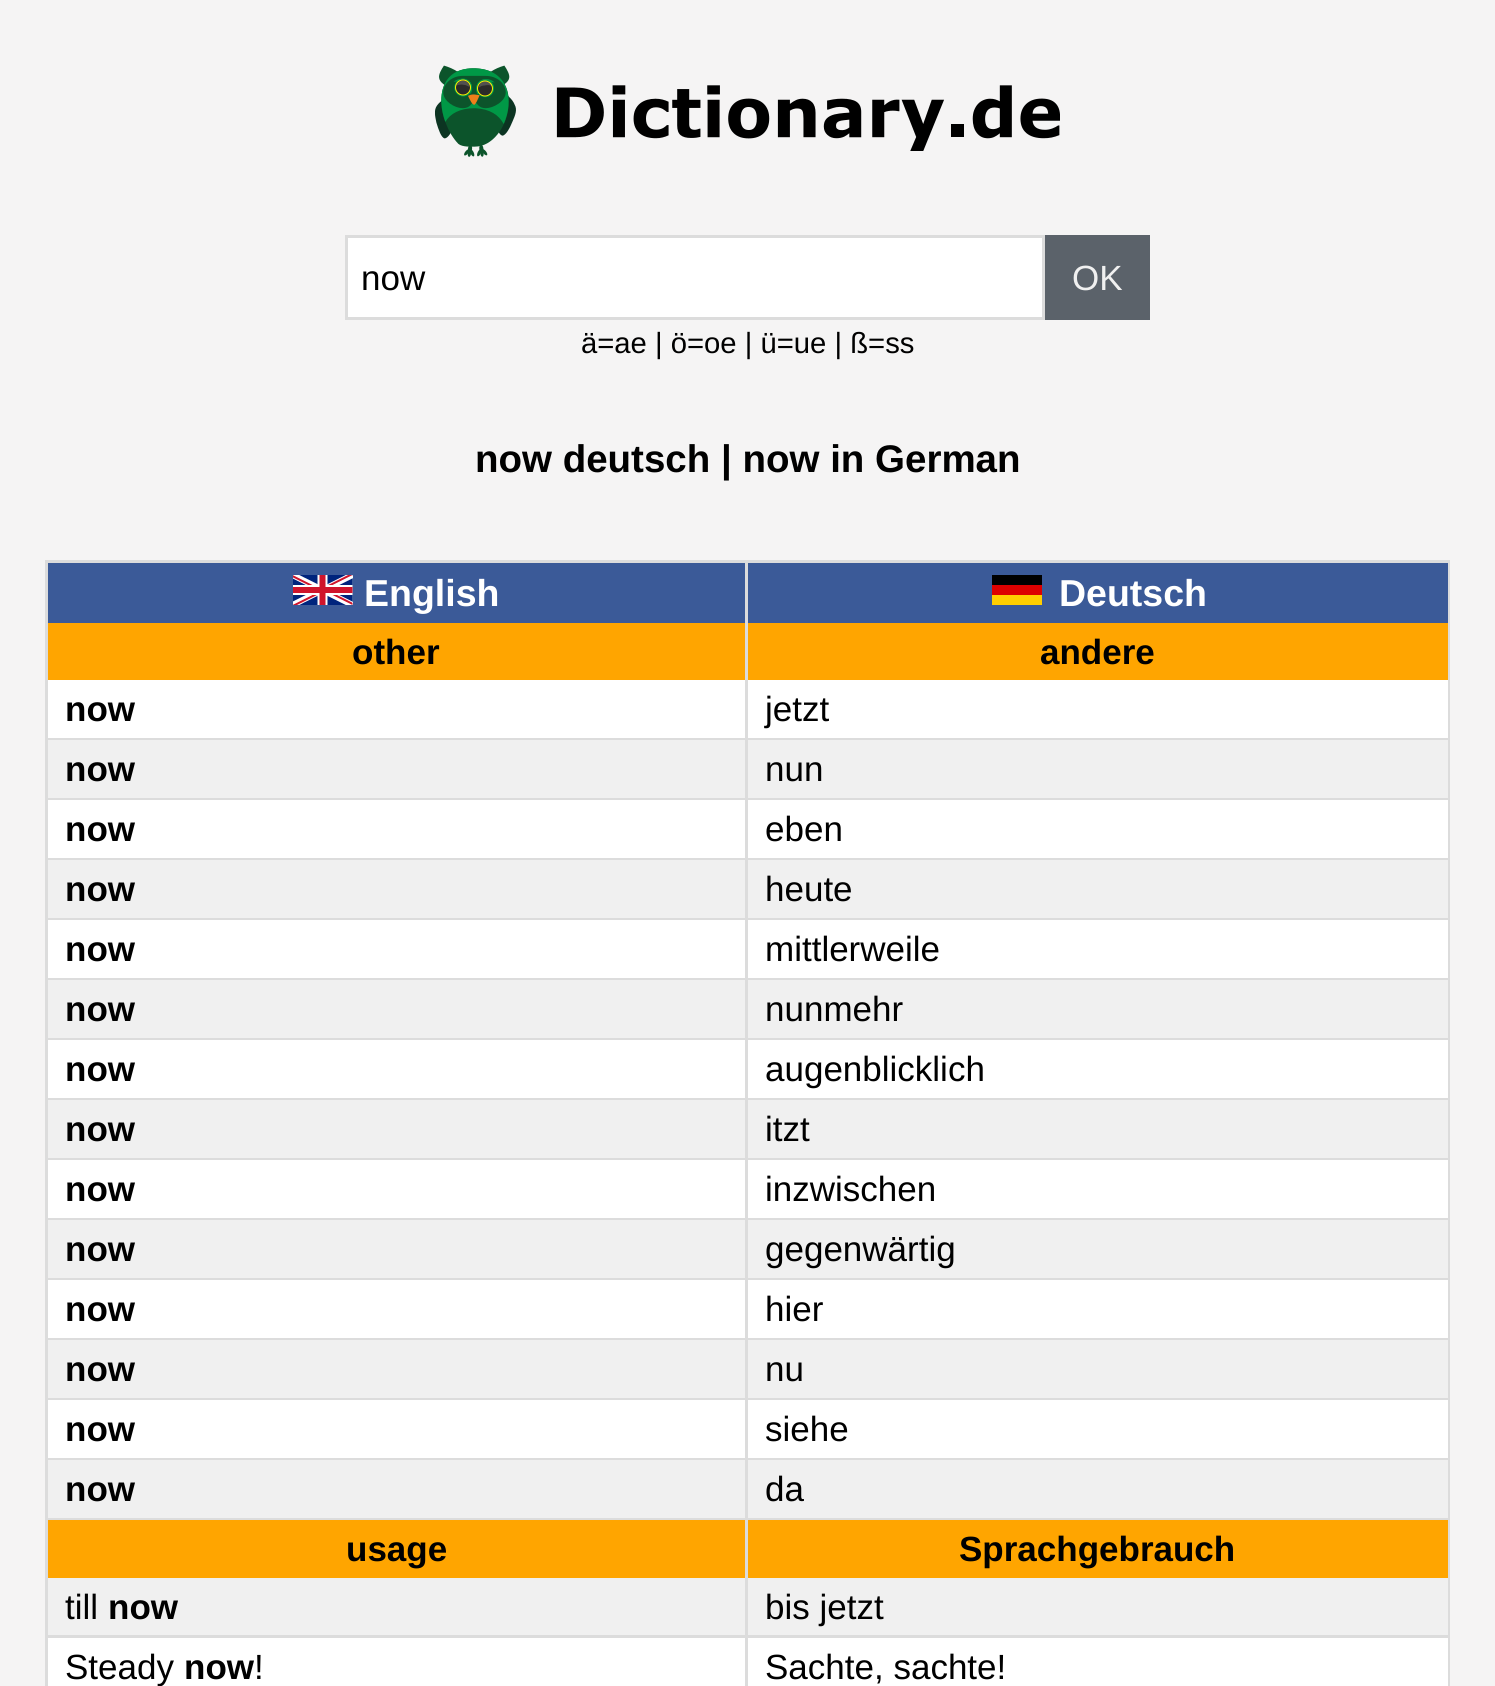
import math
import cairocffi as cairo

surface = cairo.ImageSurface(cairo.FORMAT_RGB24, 1495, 1686)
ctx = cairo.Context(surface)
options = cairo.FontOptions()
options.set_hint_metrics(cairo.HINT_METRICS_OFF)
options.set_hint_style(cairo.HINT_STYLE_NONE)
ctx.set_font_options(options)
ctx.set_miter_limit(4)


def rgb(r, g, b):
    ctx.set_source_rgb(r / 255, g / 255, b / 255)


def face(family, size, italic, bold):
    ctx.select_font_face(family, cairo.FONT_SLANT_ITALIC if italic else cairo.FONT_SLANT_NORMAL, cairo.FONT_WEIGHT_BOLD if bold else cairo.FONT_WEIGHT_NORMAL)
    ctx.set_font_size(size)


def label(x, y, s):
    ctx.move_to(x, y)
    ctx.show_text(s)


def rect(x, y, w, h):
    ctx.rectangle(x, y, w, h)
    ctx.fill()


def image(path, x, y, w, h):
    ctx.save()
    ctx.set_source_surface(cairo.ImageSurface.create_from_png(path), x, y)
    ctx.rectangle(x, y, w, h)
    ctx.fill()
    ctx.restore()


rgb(245, 244, 244)
ctx.paint()
image('image0.png', 435, 65, 625, 92)
rgb(255, 255, 255)
ctx.rectangle(346.5, 236.5, 697, 82)
ctx.fill_preserve()
rgb(220, 220, 220)
ctx.set_line_width(3)
ctx.stroke()
face('Liberation Sans', 35, 0, 0)
rgb(0, 0, 0)
label(361, 290, 'now')
rgb(91, 98, 106)
rect(1045, 235, 105, 85)
rgb(240, 240, 240)
label(1072, 290, 'OK')
face('Liberation Sans', 29.25, 0, 0)
rgb(0, 0, 0)
label(581, 353, 'ä=ae | ö=oe | ü=ue | ß=ss')
face('Liberation Sans', 38.5, 0, 1)
label(475, 472, 'now deutsch | now in German')
ctx.rectangle(46.5, 561.5, 1402, 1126)
rgb(220, 220, 220)
ctx.stroke()
rgb(59, 90, 152)
rect(48, 563, 697, 60)
rgb(220, 220, 220)
rect(745, 563, 3, 117)
image('image1.png', 293, 575, 60, 30)
face('Liberation Sans', 37.5, 0, 1)
rgb(255, 255, 255)
label(364, 606, 'English')
rgb(59, 90, 152)
rect(748, 563, 700, 60)
rgb(0, 0, 0)
rect(992, 575, 50, 10)
rgb(221, 0, 0)
rect(992, 585, 50, 10)
rgb(255, 206, 0)
rect(992, 595, 50, 10)
rgb(255, 255, 255)
label(1059, 606, 'Deutsch')
rgb(255, 165, 0)
rect(48, 623, 697, 57)
face('Liberation Sans', 35, 0, 1)
rgb(0, 0, 0)
label(352, 664, 'other')
rgb(255, 165, 0)
rect(748, 623, 700, 57)
rgb(0, 0, 0)
label(1040, 664, 'andere')
rgb(255, 255, 255)
rect(48, 680, 1400, 58)
rgb(220, 220, 220)
rect(745, 680, 3, 60)
rect(48, 738, 1400, 2)
rgb(0, 0, 0)
label(65, 721, 'now')
face('Liberation Sans', 35, 0, 0)
label(765, 721, 'jetzt')
rgb(240, 240, 240)
rect(48, 740, 1400, 58)
rgb(220, 220, 220)
rect(745, 740, 3, 60)
rect(48, 798, 1400, 2)
face('Liberation Sans', 35, 0, 1)
rgb(0, 0, 0)
label(65, 781, 'now')
face('Liberation Sans', 35, 0, 0)
label(765, 781, 'nun')
rgb(255, 255, 255)
rect(48, 800, 1400, 58)
rgb(220, 220, 220)
rect(745, 800, 3, 60)
rect(48, 858, 1400, 2)
face('Liberation Sans', 35, 0, 1)
rgb(0, 0, 0)
label(65, 841, 'now')
face('Liberation Sans', 35, 0, 0)
label(765, 841, 'eben')
rgb(240, 240, 240)
rect(48, 860, 1400, 58)
rgb(220, 220, 220)
rect(745, 860, 3, 60)
rect(48, 918, 1400, 2)
face('Liberation Sans', 35, 0, 1)
rgb(0, 0, 0)
label(65, 901, 'now')
face('Liberation Sans', 35, 0, 0)
label(765, 901, 'heute')
rgb(255, 255, 255)
rect(48, 920, 1400, 58)
rgb(220, 220, 220)
rect(745, 920, 3, 60)
rect(48, 978, 1400, 2)
face('Liberation Sans', 35, 0, 1)
rgb(0, 0, 0)
label(65, 961, 'now')
face('Liberation Sans', 35, 0, 0)
label(765, 961, 'mittlerweile')
rgb(240, 240, 240)
rect(48, 980, 1400, 58)
rgb(220, 220, 220)
rect(745, 980, 3, 60)
rect(48, 1038, 1400, 2)
face('Liberation Sans', 35, 0, 1)
rgb(0, 0, 0)
label(65, 1021, 'now')
face('Liberation Sans', 35, 0, 0)
label(765, 1021, 'nunmehr')
rgb(255, 255, 255)
rect(48, 1040, 1400, 58)
rgb(220, 220, 220)
rect(745, 1040, 3, 60)
rect(48, 1098, 1400, 2)
face('Liberation Sans', 35, 0, 1)
rgb(0, 0, 0)
label(65, 1081, 'now')
face('Liberation Sans', 35, 0, 0)
label(765, 1081, 'augenblicklich')
rgb(240, 240, 240)
rect(48, 1100, 1400, 58)
rgb(220, 220, 220)
rect(745, 1100, 3, 60)
rect(48, 1158, 1400, 2)
face('Liberation Sans', 35, 0, 1)
rgb(0, 0, 0)
label(65, 1141, 'now')
face('Liberation Sans', 35, 0, 0)
label(765, 1141, 'itzt')
rgb(255, 255, 255)
rect(48, 1160, 1400, 58)
rgb(220, 220, 220)
rect(745, 1160, 3, 60)
rect(48, 1218, 1400, 2)
face('Liberation Sans', 35, 0, 1)
rgb(0, 0, 0)
label(65, 1201, 'now')
face('Liberation Sans', 35, 0, 0)
label(765, 1201, 'inzwischen')
rgb(240, 240, 240)
rect(48, 1220, 1400, 58)
rgb(220, 220, 220)
rect(745, 1220, 3, 60)
rect(48, 1278, 1400, 2)
face('Liberation Sans', 35, 0, 1)
rgb(0, 0, 0)
label(65, 1261, 'now')
face('Liberation Sans', 35, 0, 0)
label(765, 1261, 'gegenwärtig')
rgb(255, 255, 255)
rect(48, 1280, 1400, 58)
rgb(220, 220, 220)
rect(745, 1280, 3, 60)
rect(48, 1338, 1400, 2)
face('Liberation Sans', 35, 0, 1)
rgb(0, 0, 0)
label(65, 1321, 'now')
face('Liberation Sans', 35, 0, 0)
label(765, 1321, 'hier')
rgb(240, 240, 240)
rect(48, 1340, 1400, 58)
rgb(220, 220, 220)
rect(745, 1340, 3, 60)
rect(48, 1398, 1400, 2)
face('Liberation Sans', 35, 0, 1)
rgb(0, 0, 0)
label(65, 1381, 'now')
face('Liberation Sans', 35, 0, 0)
label(765, 1381, 'nu')
rgb(255, 255, 255)
rect(48, 1400, 1400, 58)
rgb(220, 220, 220)
rect(745, 1400, 3, 60)
rect(48, 1458, 1400, 2)
face('Liberation Sans', 35, 0, 1)
rgb(0, 0, 0)
label(65, 1441, 'now')
face('Liberation Sans', 35, 0, 0)
label(765, 1441, 'siehe')
rgb(240, 240, 240)
rect(48, 1460, 1400, 58)
rgb(220, 220, 220)
rect(745, 1460, 3, 118)
rect(48, 1518, 1400, 2)
face('Liberation Sans', 35, 0, 1)
rgb(0, 0, 0)
label(65, 1501, 'now')
face('Liberation Sans', 35, 0, 0)
label(765, 1501, 'da')
rgb(255, 165, 0)
rect(48, 1520, 697, 58)
face('Liberation Sans', 35, 0, 1)
rgb(0, 0, 0)
label(346, 1561, 'usage')
rgb(255, 165, 0)
rect(748, 1520, 700, 58)
rgb(0, 0, 0)
label(959, 1561, 'Sprachgebrauch')
rgb(240, 240, 240)
rect(48, 1578, 1400, 57)
rgb(220, 220, 220)
rect(745, 1578, 3, 60)
rect(48, 1635, 1400, 3)
face('Liberation Sans', 35, 0, 0)
rgb(0, 0, 0)
label(65, 1619, 'till')
face('Liberation Sans', 35, 0, 1)
label(108, 1619, 'now')
face('Liberation Sans', 35, 0, 0)
label(765, 1619, 'bis jetzt')
rgb(255, 255, 255)
rect(48, 1638, 1400, 48)
rgb(220, 220, 220)
rect(745, 1638, 3, 48)
rgb(0, 0, 0)
label(65, 1679, 'Steady')
face('Liberation Sans', 35, 0, 1)
label(184, 1679, 'now')
face('Liberation Sans', 35, 0, 0)
label(254, 1679, '!')
label(765, 1679, 'Sachte, sachte!')
surface.write_to_png('render.png')
